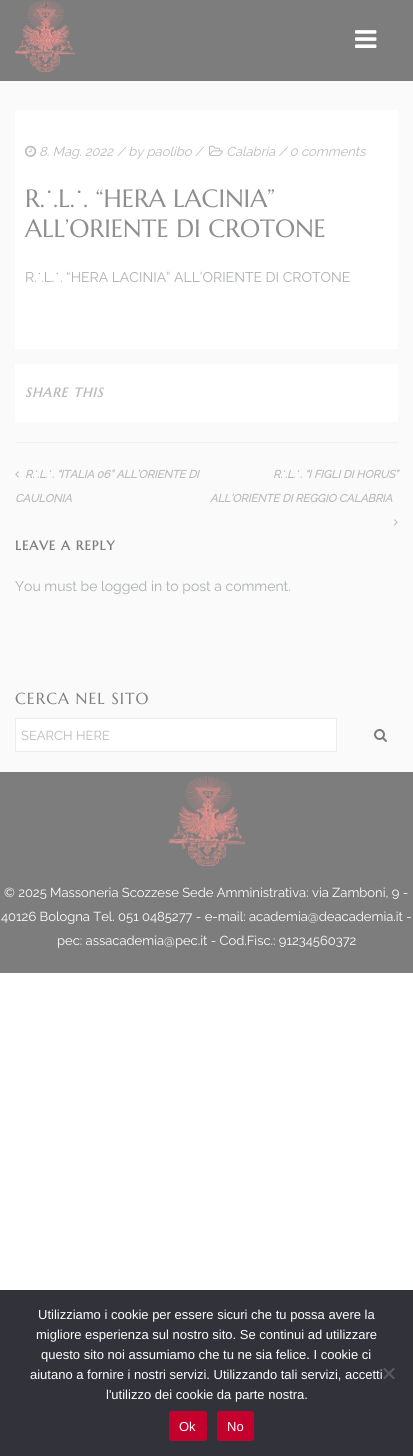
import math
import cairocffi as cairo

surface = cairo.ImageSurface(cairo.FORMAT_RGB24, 413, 1456)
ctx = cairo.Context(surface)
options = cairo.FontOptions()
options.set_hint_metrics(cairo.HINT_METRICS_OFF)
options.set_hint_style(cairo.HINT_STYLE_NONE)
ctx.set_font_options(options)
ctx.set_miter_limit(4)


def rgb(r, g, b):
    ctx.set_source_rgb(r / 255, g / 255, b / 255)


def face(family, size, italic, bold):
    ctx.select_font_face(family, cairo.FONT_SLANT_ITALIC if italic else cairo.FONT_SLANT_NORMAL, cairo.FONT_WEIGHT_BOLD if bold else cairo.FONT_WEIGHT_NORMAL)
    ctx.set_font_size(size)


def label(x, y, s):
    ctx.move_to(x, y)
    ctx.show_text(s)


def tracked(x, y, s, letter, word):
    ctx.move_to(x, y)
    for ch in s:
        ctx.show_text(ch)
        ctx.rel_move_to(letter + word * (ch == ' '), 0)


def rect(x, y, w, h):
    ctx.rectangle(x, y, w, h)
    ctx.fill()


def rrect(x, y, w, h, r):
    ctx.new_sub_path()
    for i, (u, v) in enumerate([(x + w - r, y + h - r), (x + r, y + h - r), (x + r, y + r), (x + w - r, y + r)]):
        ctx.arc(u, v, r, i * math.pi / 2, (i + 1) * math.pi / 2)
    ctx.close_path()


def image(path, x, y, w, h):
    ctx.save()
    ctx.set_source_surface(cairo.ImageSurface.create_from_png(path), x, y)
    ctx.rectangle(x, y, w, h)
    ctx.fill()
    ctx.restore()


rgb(255, 255, 255)
ctx.paint()
rgb(125, 125, 125)
rect(0, 0, 413, 81)
image('image0.png', 15, 0, 60, 72)
image('image1.png', 355, 30, 22, 18)
rgb(250, 250, 250)
rect(0, 81, 413, 691)
rgb(255, 255, 255)
rect(15, 110, 383, 239)
image('image2.png', 25, 145, 12, 12)
face('Raleway Thin', 13, 1, 0)
rgb(186, 186, 186)
label(39, 156, '8. Mag. 2022')
label(117, 156, '/ by paolibo /')
image('image3.png', 209, 145, 14, 11)
label(226, 156, 'Calabria / 0 comments')
face('Marcellus', 25, 0, 0)
rgb(142, 142, 142)
label(25, 207, 'R.')
face('Liberation Serif', 25, 0, 0)
label(45, 207, '˙')
face('Marcellus', 25, 0, 0)
label(53, 207, '.L.')
face('Liberation Serif', 25, 0, 0)
label(75, 207, '˙')
face('Marcellus', 25, 0, 0)
label(83, 207, '. “HERA LACINIA”')
label(25, 237, 'ALL’ORIENTE DI CROTONE')
face('Raleway Thin', 14, 0, 0)
rgb(173, 175, 175)
label(25, 282, 'R.')
face('Liberation Serif', 14, 0, 0)
label(37, 282, '˙')
face('Raleway Thin', 14, 0, 0)
label(41, 282, '.L.')
face('Liberation Serif', 14, 0, 0)
label(55, 282, '˙')
face('Raleway Thin', 14, 0, 0)
label(60, 282, '. “HERA LACINIA” ALL’ORIENTE DI CROTONE')
rgb(255, 255, 255)
rect(15, 364, 383, 58)
face('Marcellus', 13, 1, 1)
rgb(186, 186, 186)
tracked(25, 397, 'SHARE THIS', 1, 0)
rgb(241, 241, 241)
rect(15, 442, 383, 1)
image('image4.png', 15, 471, 4, 7)
face('Raleway', 11, 1, 1)
rgb(186, 186, 186)
label(25, 478, 'R.')
face('Liberation Serif', 11, 1, 1)
label(34, 478, '˙')
face('Raleway', 11, 1, 1)
label(37, 478, '.L.')
face('Liberation Serif', 11, 1, 1)
label(48, 478, '˙')
face('Raleway', 11, 1, 1)
label(52, 478, '. “ITALIA 06” ALL’ORIENTE DI')
label(15, 502, 'CAULONIA')
label(273, 478, 'R.')
face('Liberation Serif', 11, 1, 1)
label(282, 478, '˙')
face('Raleway', 11, 1, 1)
label(285, 478, '.L.')
face('Liberation Serif', 11, 1, 1)
label(296, 478, '˙')
face('Raleway', 11, 1, 1)
label(300, 478, '. “I FIGLI DI HORUS”')
label(210, 502, 'ALL’ORIENTE DI REGGIO CALABRIA')
image('image5.png', 394, 519, 4, 7)
face('Marcellus', 13, 0, 1)
rgb(125, 125, 125)
tracked(15, 550, 'LEAVE A REPLY', 1, 0)
face('Raleway Thin', 14, 0, 0)
rgb(173, 175, 175)
label(15, 591, 'You must be logged in to post a comment.')
face('Marcellus', 16, 0, 0)
rgb(125, 125, 125)
tracked(15, 704, 'CERCA NEL SITO', 1, 0)
rgb(255, 255, 255)
ctx.rectangle(15.5, 718.5, 321, 33)
ctx.fill_preserve()
rgb(237, 237, 236)
ctx.set_line_width(1)
ctx.stroke()
face('Raleway Thin', 13, 0, 0)
rgb(186, 186, 186)
label(21, 740, 'SEARCH HERE')
image('image6.png', 374, 729, 13, 13)
rgb(125, 125, 125)
rect(0, 772, 413, 201)
image('image7.png', 169, 776, 76, 90)
rgb(255, 255, 255)
label(4, 897, '© 2025 Massoneria Scozzese Sede Amministrativa: via Zamboni, 9 -')
label(1, 921, '40126 Bologna Tel. 051 0485277 - e-mail: academia@deacademia.it -')
label(57, 945, 'pec: assacademia@pec.it - Cod.Fisc.: 91234560372')
rgb(50, 50, 58)
rect(0, 1290, 413, 166)
face('Liberation Sans', 13, 0, 0)
rgb(255, 255, 255)
label(38, 1319, 'Utilizziamo i cookie per essere sicuri che tu possa avere la')
label(36, 1339, 'migliore esperienza sul nostro sito. Se continui ad utilizzare')
label(41, 1359, 'questo sito noi assumiamo che tu ne sia felice. I cookie ci')
label(30, 1379, 'aiutano a fornire i nostri servizi. Utilizzando tali servizi, accetti')
label(106, 1399, 'l\'utilizzo dei cookie da parte nostra.')
rgb(89, 89, 93)
ctx.new_path()
ctx.move_to(393.5, 1367.5)
ctx.line_to(395, 1369)
ctx.line_to(384.5, 1379.5)
ctx.line_to(383, 1378)
ctx.close_path()
ctx.fill()
ctx.new_path()
ctx.move_to(383, 1369)
ctx.line_to(384.5, 1367.5)
ctx.line_to(395, 1378)
ctx.line_to(393.5, 1379.5)
ctx.close_path()
ctx.fill()
rgb(196, 0, 45)
rrect(169, 1411, 38, 30, 3)
ctx.fill()
rgb(255, 255, 255)
label(179, 1431, 'Ok')
rgb(196, 0, 45)
rrect(217, 1411, 37, 30, 3)
ctx.fill()
rgb(255, 255, 255)
label(227, 1431, 'No')
surface.write_to_png('render.png')
